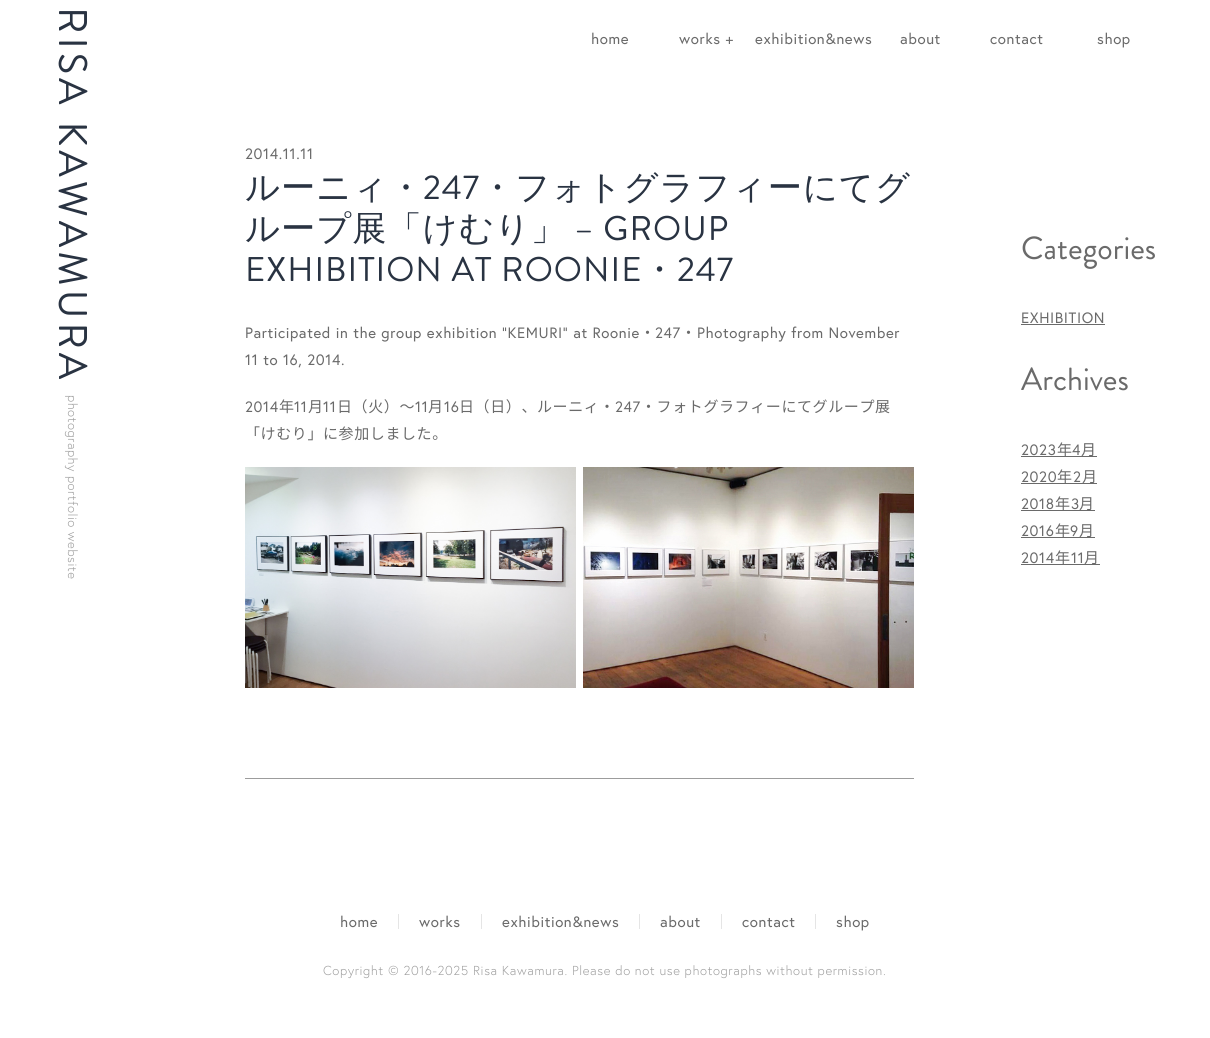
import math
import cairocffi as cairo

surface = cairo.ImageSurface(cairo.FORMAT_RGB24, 1210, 1038)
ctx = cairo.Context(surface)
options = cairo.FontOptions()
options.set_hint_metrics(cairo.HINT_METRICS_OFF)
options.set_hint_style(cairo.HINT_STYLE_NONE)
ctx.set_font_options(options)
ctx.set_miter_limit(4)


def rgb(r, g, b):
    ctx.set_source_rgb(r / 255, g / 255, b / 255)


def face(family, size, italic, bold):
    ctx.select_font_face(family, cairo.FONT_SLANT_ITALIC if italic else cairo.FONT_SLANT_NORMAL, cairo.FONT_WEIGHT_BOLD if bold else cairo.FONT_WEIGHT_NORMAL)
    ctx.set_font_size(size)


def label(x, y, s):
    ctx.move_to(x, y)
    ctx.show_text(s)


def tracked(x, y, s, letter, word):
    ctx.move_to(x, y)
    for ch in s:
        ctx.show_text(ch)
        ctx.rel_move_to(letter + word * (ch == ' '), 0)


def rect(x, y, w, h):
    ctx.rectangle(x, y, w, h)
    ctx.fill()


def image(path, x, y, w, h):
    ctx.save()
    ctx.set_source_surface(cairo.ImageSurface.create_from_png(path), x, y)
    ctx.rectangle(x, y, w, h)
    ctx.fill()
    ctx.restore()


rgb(255, 255, 255)
ctx.paint()
face('Brandon Grotesque', 40, 0, 0)
rgb(41, 51, 66)
ctx.save()
ctx.translate(59, 7)
ctx.rotate(90 * math.pi / 180)
tracked(0, 0, 'RISA KAWAMURA', 4, 0)
ctx.restore()
face('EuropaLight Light', 13, 0, 0)
rgb(156, 156, 156)
ctx.save()
ctx.translate(68, 395)
ctx.rotate(90 * math.pi / 180)
tracked(0, 0, 'photography portfolio website', 0.5, 0)
ctx.restore()
face('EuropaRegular', 15, 0, 0)
rgb(106, 106, 106)
tracked(591, 44, 'home', 0.6, 0)
tracked(679, 44, 'works +', 0.6, 0)
tracked(755, 44, 'exhibition&news', 0.6, 0)
tracked(900, 44, 'about', 0.6, 0)
tracked(990, 44, 'contact', 0.6, 0)
tracked(1097, 44, 'shop', 0.6, 0)
rgb(156, 156, 156)
rect(245, 778, 669, 1)
rgb(106, 106, 106)
tracked(245, 159, '2014.11.11', 0.6, 0)
face('WenQuanYi Zen Hei Medium', 34.25, 0, 0)
rgb(41, 51, 66)
tracked(245, 199, 'ルーニィ・', 1, 0)
face('Brandon Grotesque', 34.25, 0, 0)
tracked(423, 199, '247', 1, 0)
face('WenQuanYi Zen Hei Medium', 34.25, 0, 0)
tracked(480, 199, '・フォトグラフィーにてグ', 1, 0)
tracked(245, 240, 'ループ展「けむり」', 1, 0)
face('Brandon Grotesque', 34.25, 0, 0)
tracked(574, 240, '– GROUP', 1, 0)
tracked(245, 281, 'EXHIBITION AT ROONIE', 1, 0)
face('WenQuanYi Zen Hei Medium', 34.25, 0, 0)
tracked(642, 281, '・', 1, 0)
face('Brandon Grotesque', 34.25, 0, 0)
tracked(677, 281, '247', 1, 0)
face('EuropaRegular', 15, 0, 0)
rgb(106, 106, 106)
tracked(245, 338, 'Participated in the group exhibition “KEMURI” at Roonie', 0.6, 0)
face('Noto Sans JP', 15, 0, 0)
tracked(640, 338, '・', 0.6, 0)
face('EuropaRegular', 15, 0, 0)
tracked(655, 338, '247', 0.6, 0)
face('Noto Sans JP', 15, 0, 0)
tracked(681, 338, '・', 0.6, 0)
face('EuropaRegular', 15, 0, 0)
tracked(697, 338, 'Photography from November', 0.6, 0)
tracked(245, 365, '11 to 16, 2014.', 0.6, 0)
tracked(245, 412, '2014', 0.6, 0)
face('Noto Sans JP', 15, 0, 0)
tracked(279, 412, '年', 0.6, 0)
face('EuropaRegular', 15, 0, 0)
tracked(294, 412, '11', 0.6, 0)
face('Noto Sans JP', 15, 0, 0)
tracked(308, 412, '月', 0.6, 0)
face('EuropaRegular', 15, 0, 0)
tracked(323, 412, '11', 0.6, 0)
face('Noto Sans JP', 15, 0, 0)
tracked(337, 412, '日（火）～', 0.6, 0)
face('EuropaRegular', 15, 0, 0)
tracked(415, 412, '11', 0.6, 0)
face('Noto Sans JP', 15, 0, 0)
tracked(428, 412, '月', 0.6, 0)
face('EuropaRegular', 15, 0, 0)
tracked(444, 412, '16', 0.6, 0)
face('Noto Sans JP', 15, 0, 0)
tracked(459, 412, '日（日）、ルーニィ・', 0.6, 0)
face('EuropaRegular', 15, 0, 0)
tracked(615, 412, '247', 0.6, 0)
face('Noto Sans JP', 15, 0, 0)
tracked(641, 412, '・フォトグラフィーにてグループ展', 0.6, 0)
tracked(245, 439, '「けむり」に参加しました。', 0.6, 0)
image('image0.png', 245, 467, 331, 221)
image('image1.png', 583, 467, 331, 221)
face('Brandon Grotesque', 32, 0, 0)
label(1021, 259, 'Categories')
face('EuropaRegular', 15, 0, 0)
tracked(1021, 323, 'EXHIBITION', 0.6, 0)
rect(1021, 324, 84, 1)
face('Brandon Grotesque', 32, 0, 0)
label(1021, 390, 'Archives')
face('EuropaRegular', 15, 0, 0)
tracked(1021, 455, '2023', 0.6, 0)
rect(1021, 456, 76, 1)
face('Noto Sans JP', 15, 0, 0)
tracked(1057, 455, '年', 0.6, 0)
face('EuropaRegular', 15, 0, 0)
tracked(1072, 455, '4', 0.6, 0)
face('Noto Sans JP', 15, 0, 0)
tracked(1081, 455, '月', 0.6, 0)
face('EuropaRegular', 15, 0, 0)
tracked(1021, 482, '2020', 0.6, 0)
rect(1021, 483, 76, 1)
face('Noto Sans JP', 15, 0, 0)
tracked(1057, 482, '年', 0.6, 0)
face('EuropaRegular', 15, 0, 0)
tracked(1073, 482, '2', 0.6, 0)
face('Noto Sans JP', 15, 0, 0)
tracked(1082, 482, '月', 0.6, 0)
face('EuropaRegular', 15, 0, 0)
tracked(1021, 509, '2018', 0.6, 0)
rect(1021, 510, 74, 1)
face('Noto Sans JP', 15, 0, 0)
tracked(1055, 509, '年', 0.6, 0)
face('EuropaRegular', 15, 0, 0)
tracked(1071, 509, '3', 0.6, 0)
face('Noto Sans JP', 15, 0, 0)
tracked(1079, 509, '月', 0.6, 0)
face('EuropaRegular', 15, 0, 0)
tracked(1021, 536, '2016', 0.6, 0)
rect(1021, 537, 74, 1)
face('Noto Sans JP', 15, 0, 0)
tracked(1055, 536, '年', 0.6, 0)
face('EuropaRegular', 15, 0, 0)
tracked(1070, 536, '9', 0.6, 0)
face('Noto Sans JP', 15, 0, 0)
tracked(1079, 536, '月', 0.6, 0)
face('EuropaRegular', 15, 0, 0)
tracked(1021, 563, '2014', 0.6, 0)
rect(1021, 564, 79, 1)
face('Noto Sans JP', 15, 0, 0)
tracked(1055, 563, '年', 0.6, 0)
face('EuropaRegular', 15, 0, 0)
tracked(1071, 563, '11', 0.6, 0)
face('Noto Sans JP', 15, 0, 0)
tracked(1084, 563, '月', 0.6, 0)
rgb(229, 229, 229)
rect(398, 914, 1, 15)
face('EuropaRegular', 15, 0, 0)
rgb(106, 106, 106)
tracked(340, 927, 'home', 0.6, 0)
rgb(229, 229, 229)
rect(481, 914, 1, 15)
rgb(106, 106, 106)
tracked(419, 927, 'works', 0.6, 0)
rgb(229, 229, 229)
rect(639, 914, 1, 15)
rgb(106, 106, 106)
tracked(502, 927, 'exhibition&news', 0.6, 0)
rgb(229, 229, 229)
rect(721, 914, 1, 15)
rgb(106, 106, 106)
tracked(660, 927, 'about', 0.6, 0)
rgb(229, 229, 229)
rect(815, 914, 1, 15)
rgb(106, 106, 106)
tracked(742, 927, 'contact', 0.6, 0)
tracked(836, 927, 'shop', 0.6, 0)
face('EuropaLight Light', 13, 0, 0)
rgb(156, 156, 156)
tracked(323, 975, 'Copyright © 2016-2025 Risa Kawamura. Please do not use photographs without permission.', 0.6, 0)
surface.write_to_png('render.png')
